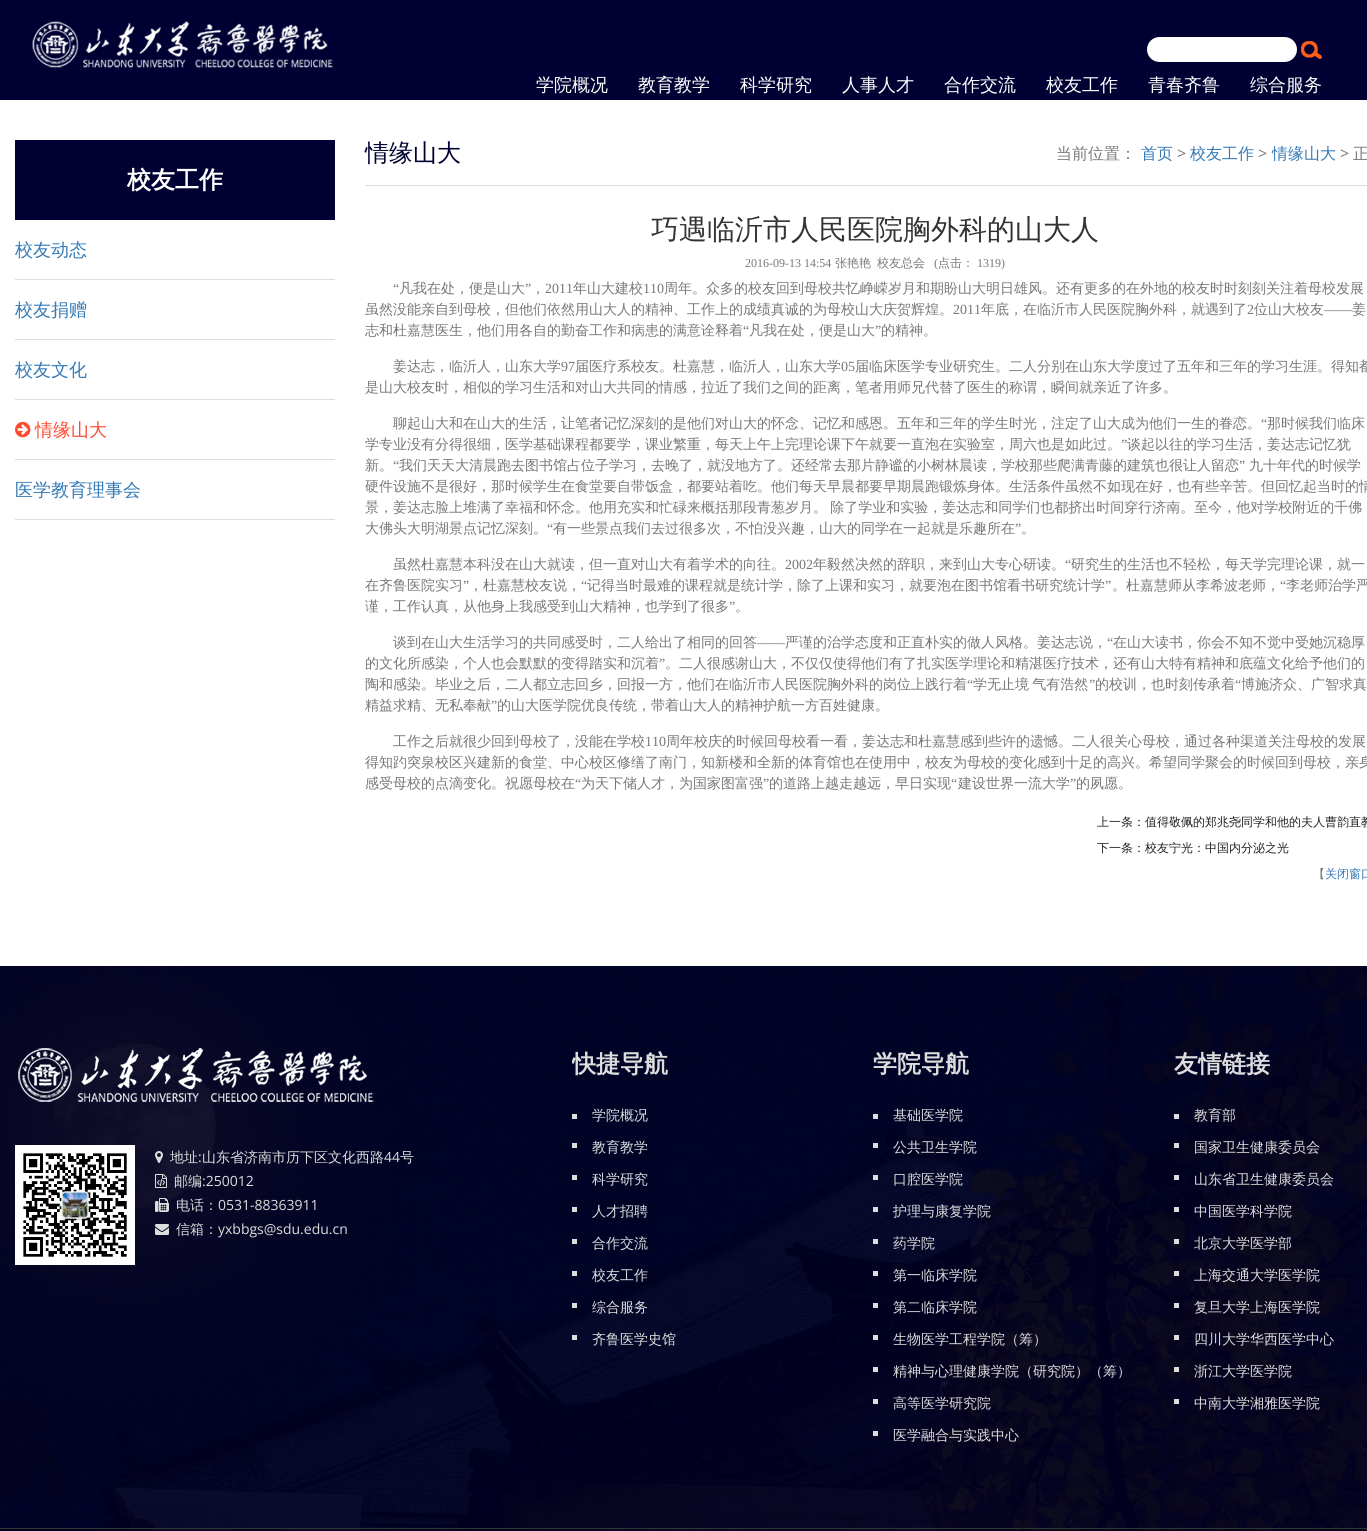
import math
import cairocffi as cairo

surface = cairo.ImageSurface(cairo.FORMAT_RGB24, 1367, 1531)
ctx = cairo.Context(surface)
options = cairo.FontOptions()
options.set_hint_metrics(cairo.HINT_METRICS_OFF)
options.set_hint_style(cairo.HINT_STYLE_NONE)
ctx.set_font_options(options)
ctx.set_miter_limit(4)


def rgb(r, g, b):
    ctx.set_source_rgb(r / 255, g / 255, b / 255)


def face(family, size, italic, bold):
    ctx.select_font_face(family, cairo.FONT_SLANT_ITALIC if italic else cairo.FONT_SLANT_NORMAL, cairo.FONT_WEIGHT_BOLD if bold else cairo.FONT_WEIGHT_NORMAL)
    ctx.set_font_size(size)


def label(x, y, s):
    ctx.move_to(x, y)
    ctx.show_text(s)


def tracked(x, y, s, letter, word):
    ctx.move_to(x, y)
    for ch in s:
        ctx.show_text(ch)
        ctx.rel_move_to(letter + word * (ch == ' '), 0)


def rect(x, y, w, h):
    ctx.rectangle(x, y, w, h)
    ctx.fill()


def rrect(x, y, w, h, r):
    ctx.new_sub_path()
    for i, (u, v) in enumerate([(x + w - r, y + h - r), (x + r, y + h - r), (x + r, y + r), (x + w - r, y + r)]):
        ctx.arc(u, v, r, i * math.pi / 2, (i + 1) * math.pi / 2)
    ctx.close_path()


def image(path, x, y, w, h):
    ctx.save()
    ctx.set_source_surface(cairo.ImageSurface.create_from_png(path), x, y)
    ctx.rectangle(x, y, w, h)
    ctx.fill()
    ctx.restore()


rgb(255, 255, 255)
ctx.paint()
rgb(0, 0, 51)
rect(0, 0, 1367, 100)
image('image0.png', 32, 21, 302, 47)
rgb(255, 255, 255)
rrect(1147, 37, 150, 25, 12.5)
ctx.fill()
image('image1.png', 1301, 41, 21, 18)
face('WenQuanYi Zen Hei Medium', 18, 0, 0)
label(536, 91, '学院概况')
label(638, 91, '教育教学')
label(740, 91, '科学研究')
label(842, 91, '人事人才')
label(944, 91, '合作交流')
label(1046, 91, '校友工作')
label(1148, 91, '青春齐鲁')
label(1250, 91, '综合服务')
rgb(0, 0, 51)
rect(15, 140, 320, 80)
face('WenQuanYi Zen Hei', 24, 0, 1)
rgb(255, 255, 255)
label(127, 188, '校友工作')
rgb(221, 221, 221)
rect(15, 279, 320, 1)
face('WenQuanYi Zen Hei Medium', 18, 0, 0)
rgb(51, 122, 183)
label(15, 256, '校友动态')
rgb(221, 221, 221)
rect(15, 339, 320, 1)
rgb(51, 122, 183)
label(15, 316, '校友捐赠')
rgb(221, 221, 221)
rect(15, 399, 320, 1)
rgb(51, 122, 183)
label(15, 376, '校友文化')
rgb(221, 221, 221)
rect(15, 459, 320, 1)
image('image2.png', 15, 421, 16, 17)
rgb(255, 73, 48)
label(35, 436, '情缘山大')
rgb(221, 221, 221)
rect(15, 519, 320, 1)
rgb(51, 122, 183)
label(15, 496, '医学教育理事会')
face('WenQuanYi Zen Hei Medium', 24, 0, 0)
rgb(0, 0, 51)
label(365, 161, '情缘山大')
face('WenQuanYi Zen Hei Medium', 16, 0, 0)
rgb(119, 119, 119)
label(1056, 159, '当前位置：')
rgb(51, 122, 183)
label(1141, 159, '首页')
face('Open Sans', 16, 0, 0)
rgb(119, 119, 119)
label(1177, 159, '>')
face('WenQuanYi Zen Hei Medium', 16, 0, 0)
rgb(51, 122, 183)
label(1190, 159, '校友工作')
face('Open Sans', 16, 0, 0)
rgb(119, 119, 119)
label(1258, 159, '>')
face('WenQuanYi Zen Hei Medium', 16, 0, 0)
rgb(51, 122, 183)
label(1272, 159, '情缘山大')
face('Open Sans', 16, 0, 0)
rgb(119, 119, 119)
label(1340, 159, '>')
face('WenQuanYi Zen Hei Medium', 16, 0, 0)
label(1353, 159, '正')
rgb(221, 221, 221)
rect(365, 185, 1002, 1)
face('WenQuanYi Zen Hei Medium', 28, 0, 0)
rgb(51, 51, 51)
label(651, 239, '巧遇临沂市人民医院胸外科的山大人')
face('Liberation Serif', 12, 0, 0)
rgb(119, 119, 119)
label(745, 267, '2016-09-13 14:54')
face('WenQuanYi Zen Hei Medium', 12, 0, 0)
label(835, 267, '张艳艳')
label(877, 267, '校友总会')
face('Liberation Serif', 12, 0, 0)
label(934, 267, '(')
face('WenQuanYi Zen Hei Medium', 12, 0, 0)
label(938, 267, '点击：')
face('Liberation Serif', 12, 0, 0)
label(977, 267, '1319)')
face('Liberation Serif', 14, 0, 0)
label(393, 293, '“')
face('WenQuanYi Zen Hei Medium', 14, 0, 0)
label(399, 293, '凡我在处，便是山大')
face('Liberation Serif', 14, 0, 0)
label(525, 293, '”')
face('WenQuanYi Zen Hei Medium', 14, 0, 0)
label(531, 293, '，')
face('Liberation Serif', 14, 0, 0)
label(545, 293, '2011')
face('WenQuanYi Zen Hei Medium', 14, 0, 0)
label(573, 293, '年山大建校')
face('Liberation Serif', 14, 0, 0)
label(643, 293, '110')
face('WenQuanYi Zen Hei Medium', 14, 0, 0)
label(664, 293, '周年。众多的校友回到母校共忆峥嵘岁月和期盼山大明日雄风。还有更多的在外地的校友时时刻刻关注着母校发展')
label(365, 314, '虽然没能亲自到母校，但他们依然用山大人的精神、工作上的成绩真诚的为母校山大庆贺辉煌。')
face('Liberation Serif', 14, 0, 0)
label(953, 314, '2011')
face('WenQuanYi Zen Hei Medium', 14, 0, 0)
label(981, 314, '年底，在临沂市人民医院胸外科，就遇到了')
face('Liberation Serif', 14, 0, 0)
label(1247, 314, '2')
face('WenQuanYi Zen Hei Medium', 14, 0, 0)
label(1254, 314, '位山大校友')
face('Liberation Serif', 14, 0, 0)
label(1324, 314, '——')
face('WenQuanYi Zen Hei Medium', 14, 0, 0)
label(1352, 314, '姜')
label(365, 335, '志和杜嘉慧医生，他们用各自的勤奋工作和病患的满意诠释着')
face('Liberation Serif', 14, 0, 0)
label(743, 335, '“')
face('WenQuanYi Zen Hei Medium', 14, 0, 0)
label(749, 335, '凡我在处，便是山大')
face('Liberation Serif', 14, 0, 0)
label(875, 335, '”')
face('WenQuanYi Zen Hei Medium', 14, 0, 0)
label(881, 335, '的精神。')
label(393, 371, '姜达志，临沂人，山东大学')
face('Liberation Serif', 14, 0, 0)
label(561, 371, '97')
face('WenQuanYi Zen Hei Medium', 14, 0, 0)
label(575, 371, '届医疗系校友。杜嘉慧，临沂人，山东大学')
face('Liberation Serif', 14, 0, 0)
label(841, 371, '05')
face('WenQuanYi Zen Hei Medium', 14, 0, 0)
label(855, 371, '届临床医学专业研究生。二人分别在山东大学度过了五年和三年的学习生涯。得知都')
label(365, 392, '是山大校友时，相似的学习生活和对山大共同的情感，拉近了我们之间的距离，笔者用师兄代替了医生的称谓，瞬间就亲近了许多。')
label(393, 428, '聊起山大和在山大的生活，让笔者记忆深刻的是他们对山大的怀念、记忆和感恩。五年和三年的学生时光，注定了山大成为他们一生的眷恋。')
face('Liberation Serif', 14, 0, 0)
label(1261, 428, '“')
face('WenQuanYi Zen Hei Medium', 14, 0, 0)
label(1267, 428, '那时候我们临床')
label(365, 449, '学专业没有分得很细，医学基础课程都要学，课业繁重，每天上午上完理论课下午就要一直泡在实验室，周六也是如此过。')
face('Liberation Serif', 14, 0, 0)
label(1121, 449, '”')
face('WenQuanYi Zen Hei Medium', 14, 0, 0)
label(1127, 449, '谈起以往的学习生活，姜达志记忆犹')
label(365, 470, '新。')
face('Liberation Serif', 14, 0, 0)
label(393, 470, '“')
face('WenQuanYi Zen Hei Medium', 14, 0, 0)
label(399, 470, '我们天天大清晨跑去图书馆占位子学习，去晚了，就没地方了。还经常去那片静谧的小树林晨读，学校那些爬满青藤的建筑也很让人留恋')
face('Liberation Serif', 14, 0, 0)
label(1239, 470, '”')
face('WenQuanYi Zen Hei Medium', 14, 0, 0)
label(1249, 470, '九十年代的时候学')
label(365, 491, '硬件设施不是很好，那时候学生在食堂要自带饭盒，都要站着吃。他们每天早晨都要早期晨跑锻炼身体。生活条件虽然不如现在好，也有些辛苦。但回忆起当时的情')
tracked(365, 512, '景，姜达志脸上堆满了幸福和怀念。他用充实和忙碌来概括那段青葱岁月。 除了学业和实验，姜达志和同学们也都挤出时间穿行济南。至今，他对学校附近的千佛', 0, -1)
label(365, 533, '大佛头大明湖景点记忆深刻。')
face('Liberation Serif', 14, 0, 0)
label(547, 533, '“')
face('WenQuanYi Zen Hei Medium', 14, 0, 0)
label(553, 533, '有一些景点我们去过很多次，不怕没兴趣，山大的同学在一起就是乐趣所在')
face('Liberation Serif', 14, 0, 0)
label(1015, 533, '”')
face('WenQuanYi Zen Hei Medium', 14, 0, 0)
label(1021, 533, '。')
label(393, 569, '虽然杜嘉慧本科没在山大就读，但一直对山大有着学术的向往。')
face('Liberation Serif', 14, 0, 0)
label(785, 569, '2002')
face('WenQuanYi Zen Hei Medium', 14, 0, 0)
label(813, 569, '年毅然决然的辞职，来到山大专心研读。')
face('Liberation Serif', 14, 0, 0)
label(1065, 569, '“')
face('WenQuanYi Zen Hei Medium', 14, 0, 0)
label(1071, 569, '研究生的生活也不轻松，每天学完理论课，就一')
label(365, 590, '在齐鲁医院实习')
face('Liberation Serif', 14, 0, 0)
label(463, 590, '”')
face('WenQuanYi Zen Hei Medium', 14, 0, 0)
label(469, 590, '，杜嘉慧校友说，')
face('Liberation Serif', 14, 0, 0)
label(581, 590, '“')
face('WenQuanYi Zen Hei Medium', 14, 0, 0)
label(587, 590, '记得当时最难的课程就是统计学，除了上课和实习，就要泡在图书馆看书研究统计学')
face('Liberation Serif', 14, 0, 0)
label(1105, 590, '”')
face('WenQuanYi Zen Hei Medium', 14, 0, 0)
label(1112, 590, '。杜嘉慧师从李希波老师，')
face('Liberation Serif', 14, 0, 0)
label(1280, 590, '“')
face('WenQuanYi Zen Hei Medium', 14, 0, 0)
label(1286, 590, '李老师治学严')
label(365, 611, '谨，工作认真，从他身上我感受到山大精神，也学到了很多')
face('Liberation Serif', 14, 0, 0)
label(729, 611, '”')
face('WenQuanYi Zen Hei Medium', 14, 0, 0)
label(735, 611, '。')
label(393, 647, '谈到在山大生活学习的共同感受时，二人给出了相同的回答')
face('Liberation Serif', 14, 0, 0)
label(757, 647, '——')
face('WenQuanYi Zen Hei Medium', 14, 0, 0)
label(785, 647, '严谨的治学态度和正直朴实的做人风格。姜达志说，')
face('Liberation Serif', 14, 0, 0)
label(1107, 647, '“')
face('WenQuanYi Zen Hei Medium', 14, 0, 0)
label(1113, 647, '在山大读书，你会不知不觉中受她沉稳厚')
label(365, 668, '的文化所感染，个人也会默默的变得踏实和沉着')
face('Liberation Serif', 14, 0, 0)
label(659, 668, '”')
face('WenQuanYi Zen Hei Medium', 14, 0, 0)
label(665, 668, '。二人很感谢山大，不仅仅使得他们有了扎实医学理论和精湛医疗技术，还有山大特有精神和底蕴文化给予他们的')
label(365, 689, '陶和感染。毕业之后，二人都立志回乡，回报一方，他们在临沂市人民医院胸外科的岗位上践行着')
face('Liberation Serif', 14, 0, 0)
label(967, 689, '“')
face('WenQuanYi Zen Hei Medium', 14, 0, 0)
tracked(973, 689, '学无止境 气有浩然', 0, -1)
face('Liberation Serif', 14, 0, 0)
label(1089, 689, '”')
face('WenQuanYi Zen Hei Medium', 14, 0, 0)
label(1095, 689, '的校训，也时刻传承着')
face('Liberation Serif', 14, 0, 0)
label(1235, 689, '“')
face('WenQuanYi Zen Hei Medium', 14, 0, 0)
label(1241, 689, '博施济众、广智求真')
label(365, 710, '精益求精、无私奉献')
face('Liberation Serif', 14, 0, 0)
label(491, 710, '”')
face('WenQuanYi Zen Hei Medium', 14, 0, 0)
label(497, 710, '的山大医学院优良传统，带着山大人的精神护航一方百姓健康。')
label(393, 746, '工作之后就很少回到母校了，没能在学校')
face('Liberation Serif', 14, 0, 0)
label(645, 746, '110')
face('WenQuanYi Zen Hei Medium', 14, 0, 0)
label(666, 746, '周年校庆的时候回母校看一看，姜达志和杜嘉慧感到些许的遗憾。二人很关心母校，通过各种渠道关注母校的发展')
label(365, 767, '得知趵突泉校区兴建新的食堂、中心校区修缮了南门，知新楼和全新的体育馆也在使用中，校友为母校的变化感到十足的高兴。希望同学聚会的时候回到母校，亲身')
label(365, 788, '感受母校的点滴变化。祝愿母校在')
face('Liberation Serif', 14, 0, 0)
label(575, 788, '“')
face('WenQuanYi Zen Hei Medium', 14, 0, 0)
label(581, 788, '为天下储人才，为国家图富强')
face('Liberation Serif', 14, 0, 0)
label(763, 788, '”')
face('WenQuanYi Zen Hei Medium', 14, 0, 0)
label(769, 788, '的道路上越走越远，早日实现')
face('Liberation Serif', 14, 0, 0)
label(951, 788, '“')
face('WenQuanYi Zen Hei Medium', 14, 0, 0)
label(958, 788, '建设世界一流大学')
face('Liberation Serif', 14, 0, 0)
label(1070, 788, '”')
face('WenQuanYi Zen Hei Medium', 14, 0, 0)
label(1076, 788, '的夙愿。')
face('WenQuanYi Zen Hei Medium', 12, 0, 0)
rgb(34, 34, 34)
label(1097, 826, '上一条：值得敬佩的郑兆尧同学和他的夫人曹韵直教')
label(1097, 852, '下一条：校友宁光：中国内分泌之光')
rgb(119, 119, 119)
label(1313, 878, '【')
rgb(51, 122, 183)
label(1325, 878, '关闭窗口')
image('image3.png', 0, 966, 1367, 565)
image('image4.png', 18, 1048, 356, 54)
image('image5.png', 15, 1145, 120, 120)
image('image6.png', 155, 1151, 8, 12)
face('WenQuanYi Zen Hei Medium', 14, 0, 0)
rgb(221, 221, 221)
label(170, 1162, '地址')
face('Open Sans', 14, 0, 0)
label(198, 1162, ':')
face('WenQuanYi Zen Hei Medium', 14, 0, 0)
label(202, 1162, '山东省济南市历下区文化西路')
face('Open Sans', 14, 0, 0)
label(384, 1162, '44')
face('WenQuanYi Zen Hei Medium', 14, 0, 0)
label(400, 1162, '号')
image('image7.png', 155, 1174, 12, 14)
label(174, 1186, '邮编')
face('Open Sans', 14, 0, 0)
label(202, 1186, ':250012')
image('image8.png', 155, 1198, 14, 14)
face('WenQuanYi Zen Hei Medium', 14, 0, 0)
label(176, 1210, '电话：')
face('Open Sans', 14, 0, 0)
label(218, 1210, '0531-88363911')
image('image9.png', 155, 1224, 14, 11)
face('WenQuanYi Zen Hei Medium', 14, 0, 0)
label(176, 1234, '信箱：')
face('Open Sans', 14, 0, 0)
label(218, 1234, 'yxbbgs@sdu.edu.cn')
ctx.save()
ctx.rectangle(572, 1046, 271, 306)
ctx.clip()
face('WenQuanYi Zen Hei', 24, 0, 1)
label(572, 1072, '快捷导航')
ctx.restore()
rect(572, 1114, 5, 5)
face('WenQuanYi Zen Hei Medium', 14, 0, 0)
label(592, 1120, '学院概况')
rect(572, 1143, 5, 5)
label(592, 1152, '教育教学')
rect(572, 1175, 5, 5)
label(592, 1184, '科学研究')
rect(572, 1207, 5, 5)
label(592, 1216, '人才招聘')
rect(572, 1239, 5, 5)
label(592, 1248, '合作交流')
rect(572, 1271, 5, 5)
label(592, 1280, '校友工作')
rect(572, 1303, 5, 5)
label(592, 1312, '综合服务')
rect(572, 1335, 5, 5)
label(592, 1344, '齐鲁医学史馆')
face('WenQuanYi Zen Hei', 24, 0, 1)
label(873, 1072, '学院导航')
rect(873, 1114, 5, 5)
face('WenQuanYi Zen Hei Medium', 14, 0, 0)
label(893, 1120, '基础医学院')
rect(873, 1143, 5, 5)
label(893, 1152, '公共卫生学院')
rect(873, 1175, 5, 5)
label(893, 1184, '口腔医学院')
rect(873, 1207, 5, 5)
label(893, 1216, '护理与康复学院')
rect(873, 1239, 5, 5)
label(893, 1248, '药学院')
rect(873, 1271, 5, 5)
label(893, 1280, '第一临床学院')
rect(873, 1303, 5, 5)
label(893, 1312, '第二临床学院')
rect(873, 1335, 5, 5)
label(893, 1344, '生物医学工程学院（筹）')
rect(873, 1367, 5, 5)
label(893, 1376, '精神与心理健康学院（研究院）（筹）')
rect(873, 1399, 5, 5)
label(893, 1408, '高等医学研究院')
rect(873, 1431, 5, 5)
label(893, 1440, '医学融合与实践中心')
face('WenQuanYi Zen Hei', 24, 0, 1)
label(1174, 1072, '友情链接')
rect(1174, 1114, 5, 5)
face('WenQuanYi Zen Hei Medium', 14, 0, 0)
label(1194, 1120, '教育部')
rect(1174, 1143, 5, 5)
label(1194, 1152, '国家卫生健康委员会')
rect(1174, 1175, 5, 5)
label(1194, 1184, '山东省卫生健康委员会')
rect(1174, 1207, 5, 5)
label(1194, 1216, '中国医学科学院')
rect(1174, 1239, 5, 5)
label(1194, 1248, '北京大学医学部')
rect(1174, 1271, 5, 5)
label(1194, 1280, '上海交通大学医学院')
rect(1174, 1303, 5, 5)
label(1194, 1312, '复旦大学上海医学院')
rect(1174, 1335, 5, 5)
label(1194, 1344, '四川大学华西医学中心')
rect(1174, 1367, 5, 5)
label(1194, 1376, '浙江大学医学院')
rect(1174, 1399, 5, 5)
label(1194, 1408, '中南大学湘雅医学院')
ctx.set_source_rgba(0, 0, 0, 0.1)
rect(0, 1529, 1367, 2)
rgb(51, 51, 51)
rect(0, 1528, 1367, 1)
surface.write_to_png('render.png')
